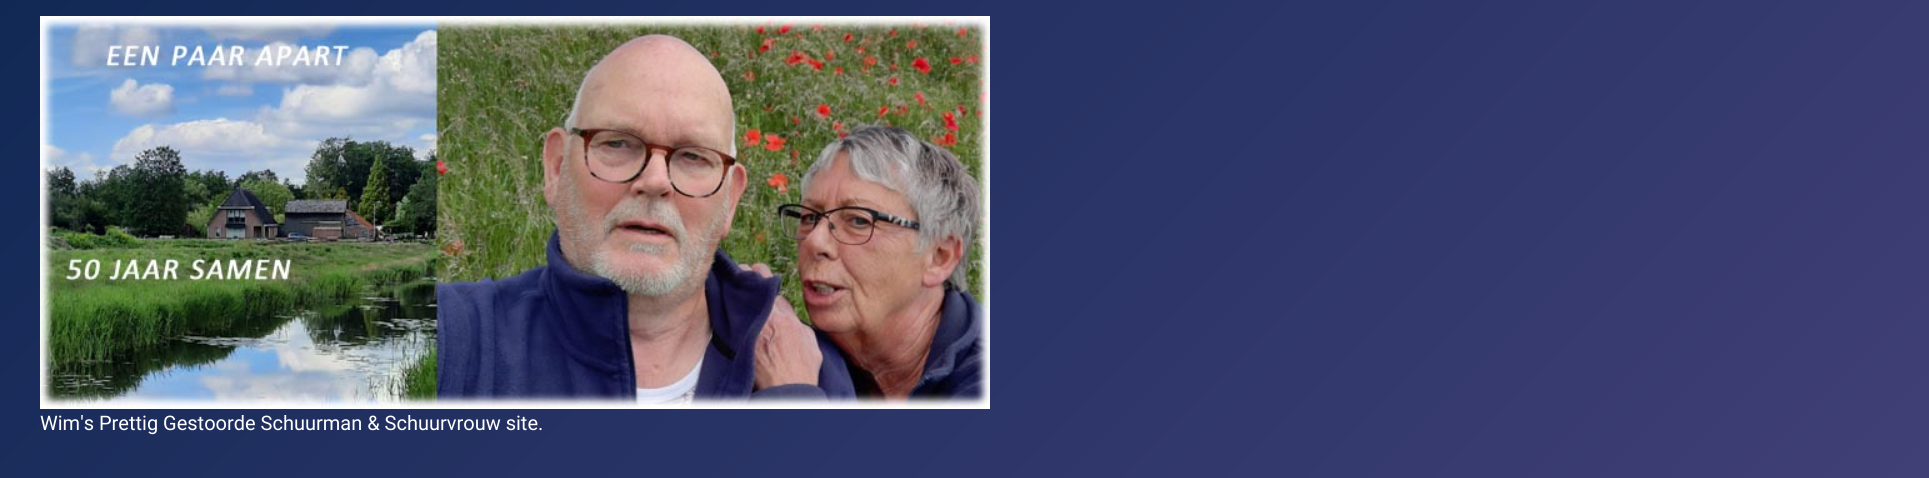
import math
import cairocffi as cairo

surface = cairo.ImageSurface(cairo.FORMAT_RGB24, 1929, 478)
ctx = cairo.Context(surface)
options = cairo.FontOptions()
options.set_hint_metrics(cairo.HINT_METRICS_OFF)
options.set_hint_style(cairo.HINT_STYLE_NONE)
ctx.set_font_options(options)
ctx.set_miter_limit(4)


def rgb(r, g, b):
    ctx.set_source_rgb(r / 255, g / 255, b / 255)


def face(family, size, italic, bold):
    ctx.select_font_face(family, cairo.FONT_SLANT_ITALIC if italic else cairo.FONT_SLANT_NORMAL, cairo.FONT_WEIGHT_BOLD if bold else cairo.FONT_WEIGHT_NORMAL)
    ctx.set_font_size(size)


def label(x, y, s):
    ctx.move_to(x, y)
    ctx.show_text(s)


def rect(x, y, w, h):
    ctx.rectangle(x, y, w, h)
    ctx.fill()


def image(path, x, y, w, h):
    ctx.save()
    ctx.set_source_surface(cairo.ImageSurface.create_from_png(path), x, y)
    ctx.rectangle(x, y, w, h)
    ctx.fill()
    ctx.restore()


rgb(255, 255, 255)
ctx.paint()
gradient = cairo.LinearGradient(345, -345, 1585, 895)
gradient.add_color_stop_rgba(0, 0.067, 0.157, 0.333, 1)
gradient.add_color_stop_rgba(1, 0.259, 0.251, 0.467, 1)
ctx.set_source(gradient)
rect(0, 0, 1929, 478)
image('image0.png', 40, 16, 950, 393)
face('Roboto', 20, 0, 0)
rgb(255, 255, 255)
label(40, 430, 'Wim\'s Prettig Gestoorde Schuurman & Schuurvrouw site.')
surface.write_to_png('render.png')
